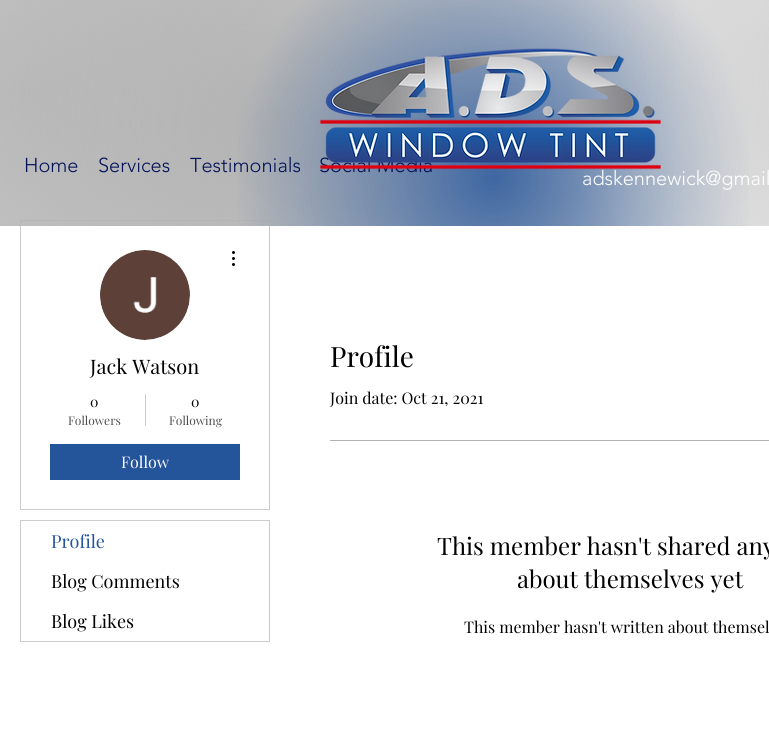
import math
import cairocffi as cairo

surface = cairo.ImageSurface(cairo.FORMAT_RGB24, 769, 741)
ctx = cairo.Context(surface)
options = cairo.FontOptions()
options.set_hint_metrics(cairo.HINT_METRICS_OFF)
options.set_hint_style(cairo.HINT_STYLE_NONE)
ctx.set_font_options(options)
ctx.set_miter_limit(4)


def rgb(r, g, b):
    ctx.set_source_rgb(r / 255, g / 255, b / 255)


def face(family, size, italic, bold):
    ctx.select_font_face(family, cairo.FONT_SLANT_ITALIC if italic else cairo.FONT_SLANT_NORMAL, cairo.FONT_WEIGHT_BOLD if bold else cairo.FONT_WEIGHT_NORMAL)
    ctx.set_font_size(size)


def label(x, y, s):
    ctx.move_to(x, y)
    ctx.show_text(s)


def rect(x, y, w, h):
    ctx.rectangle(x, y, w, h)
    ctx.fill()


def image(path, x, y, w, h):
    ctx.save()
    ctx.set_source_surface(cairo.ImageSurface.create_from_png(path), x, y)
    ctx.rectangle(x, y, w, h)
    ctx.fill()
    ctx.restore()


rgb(255, 255, 255)
ctx.paint()
ctx.rectangle(20.5, 220.5, 249, 289)
rgb(204, 204, 204)
ctx.set_line_width(1)
ctx.stroke()
gradient = cairo.RadialGradient(479, 112, 0, 479, 112, 514)
gradient.add_color_stop_rgba(0, 1, 1, 1, 0.85)
gradient.add_color_stop_rgba(1, 1, 1, 1, 0)
ctx.set_source(gradient)
rect(20, 220, 250, 6)
gradient = cairo.RadialGradient(25, 94, 0, 25, 94, 965)
gradient.add_color_stop_rgba(0, 0.749, 0.749, 0.749, 0.85)
gradient.add_color_stop_rgba(0.7, 0.749, 0.749, 0.749, 0)
ctx.set_source(gradient)
rect(0, 0, 674, 226)
gradient = cairo.RadialGradient(265, 122, 0, 265, 122, 725)
gradient.add_color_stop_rgba(0, 0.675, 0.675, 0.675, 0.85)
gradient.add_color_stop_rgba(1, 0.675, 0.675, 0.675, 0)
ctx.set_source(gradient)
rect(0, 0, 769, 226)
gradient = cairo.RadialGradient(494, 177, 0, 494, 177, 525)
gradient.add_color_stop_rgba(0, 0.141, 0.329, 0.604, 0.84)
gradient.add_color_stop_rgba(0.5, 0.141, 0.329, 0.604, 0)
ctx.set_source(gradient)
rect(238, 0, 511, 226)
gradient = cairo.RadialGradient(943, 79, 0, 943, 79, 955)
gradient.add_color_stop_rgba(0, 0.749, 0.749, 0.749, 0.85)
gradient.add_color_stop_rgba(0.4, 0.749, 0.749, 0.749, 0)
ctx.set_source(gradient)
rect(576, 0, 193, 226)
face('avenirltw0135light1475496 Light', 20, 0, 0)
rgb(3, 18, 89)
label(319, 172, 'Social Media')
rgb(255, 255, 255)
label(582, 185, 'adskennewick@gmail')
image('image0.png', 320, 48, 341, 122)
rgb(3, 18, 89)
label(24, 172, 'Home')
label(98, 172, 'Services')
label(190, 172, 'Testimonials')
rgb(216, 216, 216)
ctx.new_path()
ctx.arc(145, 295, 45, 0, 2 * math.pi)
ctx.fill()
image('image1.png', 100, 250, 90, 90)
image('image2.png', 232, 251, 3, 15)
face('Playfair Display', 20, 0, 0)
rgb(0, 0, 0)
label(90, 374, 'Jack Watson')
face('Playfair Display', 14, 0, 0)
label(90, 407, '0')
face('Playfair Display', 12, 0, 0)
rgb(77, 77, 77)
label(68, 425, 'Followers')
rgb(204, 204, 204)
rect(145, 394, 1, 32)
face('Playfair Display', 14, 0, 0)
rgb(0, 0, 0)
label(191, 407, '0')
face('Playfair Display', 12, 0, 0)
rgb(77, 77, 77)
label(169, 425, 'Following')
rgb(36, 84, 154)
rect(50, 444, 190, 36)
face('Playfair Display', 16, 0, 0)
rgb(255, 255, 255)
label(121, 468, 'Follow')
ctx.rectangle(20.5, 520.5, 249, 121)
rgb(204, 204, 204)
ctx.stroke()
face('Playfair Display', 18, 0, 0)
rgb(36, 84, 154)
label(51, 548, 'Profile')
rgb(0, 0, 0)
label(51, 588, 'Blog Comments')
label(51, 628, 'Blog Likes')
face('Playfair Display', 28, 0, 0)
label(330, 367, 'Profile')
face('Playfair Display', 16, 0, 0)
label(330, 404, 'Join date: Oct 21, 2021')
rgb(179, 179, 179)
rect(330, 440, 439, 1)
face('Playfair Display', 24, 0, 0)
rgb(0, 0, 0)
label(437, 555, 'This member hasn\'t shared any')
label(517, 588, 'about themselves yet')
face('Playfair Display', 16, 0, 0)
label(464, 633, 'This member hasn\'t written about themsel')
surface.write_to_png('render.png')
